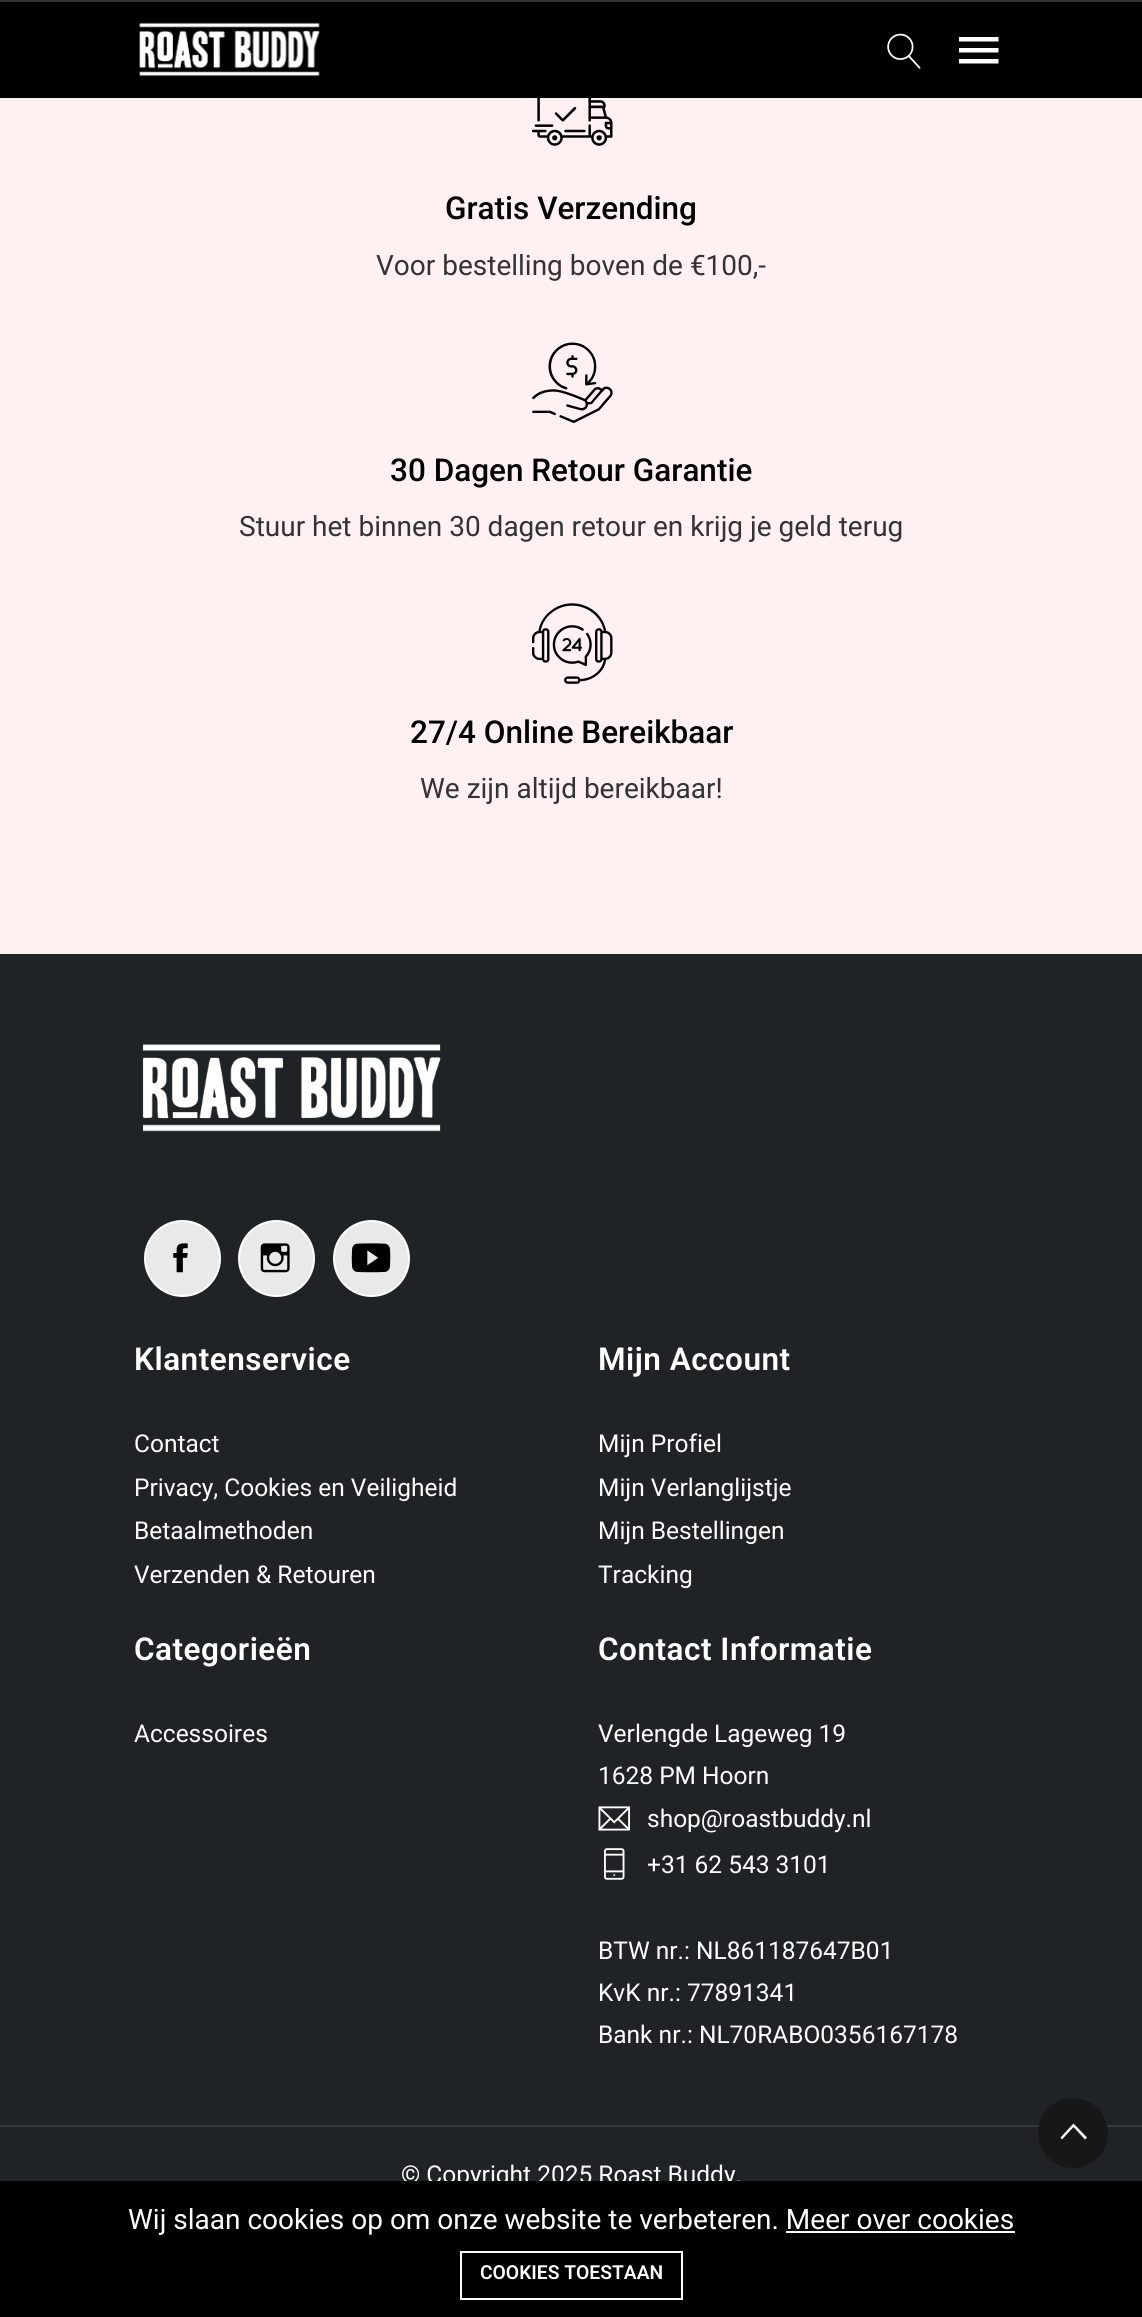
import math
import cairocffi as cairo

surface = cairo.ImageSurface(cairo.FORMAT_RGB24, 1142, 2317)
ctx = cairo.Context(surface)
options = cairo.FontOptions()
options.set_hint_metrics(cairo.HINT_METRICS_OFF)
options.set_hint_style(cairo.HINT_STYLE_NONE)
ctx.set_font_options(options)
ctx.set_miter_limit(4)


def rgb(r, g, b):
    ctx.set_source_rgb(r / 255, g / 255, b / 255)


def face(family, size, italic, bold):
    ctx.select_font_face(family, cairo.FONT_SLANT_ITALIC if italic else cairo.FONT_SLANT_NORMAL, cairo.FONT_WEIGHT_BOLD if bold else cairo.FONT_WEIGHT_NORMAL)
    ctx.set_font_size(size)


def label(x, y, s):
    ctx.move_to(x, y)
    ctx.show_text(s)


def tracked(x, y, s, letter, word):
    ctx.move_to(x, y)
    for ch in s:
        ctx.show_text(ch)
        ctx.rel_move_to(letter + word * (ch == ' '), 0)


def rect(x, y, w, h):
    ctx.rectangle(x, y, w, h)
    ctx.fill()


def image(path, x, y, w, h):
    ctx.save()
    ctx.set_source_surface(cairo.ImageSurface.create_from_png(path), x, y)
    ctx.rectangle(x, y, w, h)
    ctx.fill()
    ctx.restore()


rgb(255, 241, 241)
ctx.paint()
rgb(0, 0, 0)
rect(0, 2, 1142, 96)
rgb(51, 51, 51)
rect(0, 0, 1142, 2)
image('image0.png', 139, 22, 181, 55)
image('image1.png', 887, 33, 34, 36)
rgb(255, 255, 255)
ctx.new_path()
ctx.move_to(959, 63.5)
ctx.line_to(959, 59)
ctx.line_to(998.5, 59)
ctx.line_to(998.5, 63.5)
ctx.close_path()
ctx.move_to(959, 52.5)
ctx.line_to(959, 48)
ctx.line_to(998.5, 48)
ctx.line_to(998.5, 52.5)
ctx.close_path()
ctx.move_to(959, 37)
ctx.line_to(998.5, 37)
ctx.line_to(998.5, 41.5)
ctx.line_to(959, 41.5)
ctx.close_path()
ctx.fill()
image('image2.png', 532, 98, 81, 48)
face('Roboto Medium', 31.5, 0, 0)
rgb(0, 0, 0)
label(445, 219, 'Gratis Verzending')
face('Roboto', 28, 0, 0)
rgb(51, 51, 51)
label(376, 275, 'Voor bestelling boven de €100,-')
image('image3.png', 532, 342, 81, 81)
face('Roboto Medium', 31.5, 0, 0)
rgb(0, 0, 0)
label(390, 481, '30 Dagen Retour Garantie')
face('Roboto', 28, 0, 0)
rgb(51, 51, 51)
label(239, 536, 'Stuur het binnen 30 dagen retour en krijg je geld terug')
image('image4.png', 532, 603, 81, 81)
face('Roboto Medium', 31.5, 0, 0)
rgb(0, 0, 0)
label(410, 743, '27/4 Online Bereikbaar')
face('Roboto', 28, 0, 0)
rgb(51, 51, 51)
label(420, 798, 'We zijn altijd bereikbaar!')
rgb(32, 35, 37)
rect(0, 954, 1142, 1227)
image('image5.png', 142, 1044, 299, 88)
rgb(233, 233, 233)
ctx.arc(182.5, 1258.5, 37.5, 0, 2 * math.pi)
ctx.fill_preserve()
rgb(255, 255, 255)
ctx.stroke()
image('image6.png', 173, 1243, 15, 30)
rgb(233, 233, 233)
ctx.arc(276.5, 1258.5, 37.5, 0, 2 * math.pi)
ctx.fill_preserve()
rgb(255, 255, 255)
ctx.stroke()
image('image7.png', 260, 1243, 30, 30)
rgb(233, 233, 233)
ctx.arc(371.5, 1258.5, 37.5, 0, 2 * math.pi)
ctx.fill_preserve()
rgb(255, 255, 255)
ctx.stroke()
image('image8.png', 351, 1243, 40, 30)
face('Roboto SemiBold', 31.5, 0, 0)
tracked(134, 1370, 'Klantenservice', 0.5, 0)
face('Roboto', 24.5, 0, 0)
label(134, 1452, 'Contact')
label(134, 1496, 'Privacy, Cookies en Veiligheid')
label(134, 1539, 'Betaalmethoden')
label(134, 1583, 'Verzenden & Retouren')
face('Roboto SemiBold', 31.5, 0, 0)
tracked(598, 1370, 'Mijn Account', 0.5, 0)
face('Roboto', 24.5, 0, 0)
label(598, 1452, 'Mijn Profiel')
label(598, 1496, 'Mijn Verlanglijstje')
label(598, 1539, 'Mijn Bestellingen')
label(598, 1583, 'Tracking')
face('Roboto SemiBold', 31.5, 0, 0)
tracked(134, 1660, 'Categorieën', 0.5, 0)
face('Roboto', 24.5, 0, 0)
label(134, 1742, 'Accessoires')
face('Roboto SemiBold', 31.5, 0, 0)
tracked(598, 1660, 'Contact Informatie', 0.5, 0)
face('Roboto', 24.5, 0, 0)
label(598, 1742, 'Verlengde Lageweg 19')
label(598, 1784, '1628 PM Hoorn')
image('image9.png', 598, 1806, 32, 25)
label(647, 1827, 'shop@roastbuddy.nl')
image('image10.png', 604, 1848, 21, 32)
ctx.save()
ctx.rectangle(648, 1841, 182, 46)
ctx.clip()
label(647, 1873, '+31 62 543 3101')
ctx.restore()
label(598, 1959, 'BTW nr.: NL861187647B01')
label(598, 2001, 'KvK nr.: 77891341')
label(598, 2043, 'Bank nr.: NL70RABO0356167178')
rgb(54, 57, 59)
rect(0, 2125, 1142, 2)
rgb(255, 255, 255)
label(401, 2183, '© Copyright 2025 Roast Buddy.')
rgb(23, 23, 23)
ctx.new_path()
ctx.arc(1073, 2133, 35, 0, 2 * math.pi)
ctx.fill()
rgb(255, 255, 255)
ctx.new_path()
ctx.move_to(1085, 2139.5)
ctx.line_to(1073.5, 2127)
ctx.line_to(1062, 2139.5)
ctx.line_to(1060.5, 2137.5)
ctx.line_to(1073.5, 2123.5)
ctx.line_to(1087, 2137.5)
ctx.close_path()
ctx.fill()
rgb(0, 0, 0)
rect(0, 2181, 1142, 136)
face('Roboto', 28, 0, 0)
rgb(255, 255, 255)
label(128, 2229, 'Wij slaan cookies op om onze website te verbeteren. Meer over cookies')
rect(786, 2231, 229, 2)
ctx.rectangle(461, 2252, 221, 47)
ctx.stroke()
face('Roboto SemiBold', 19.25, 0, 0)
label(480, 2279, 'COOKIES TOESTAAN')
surface.write_to_png('render.png')
